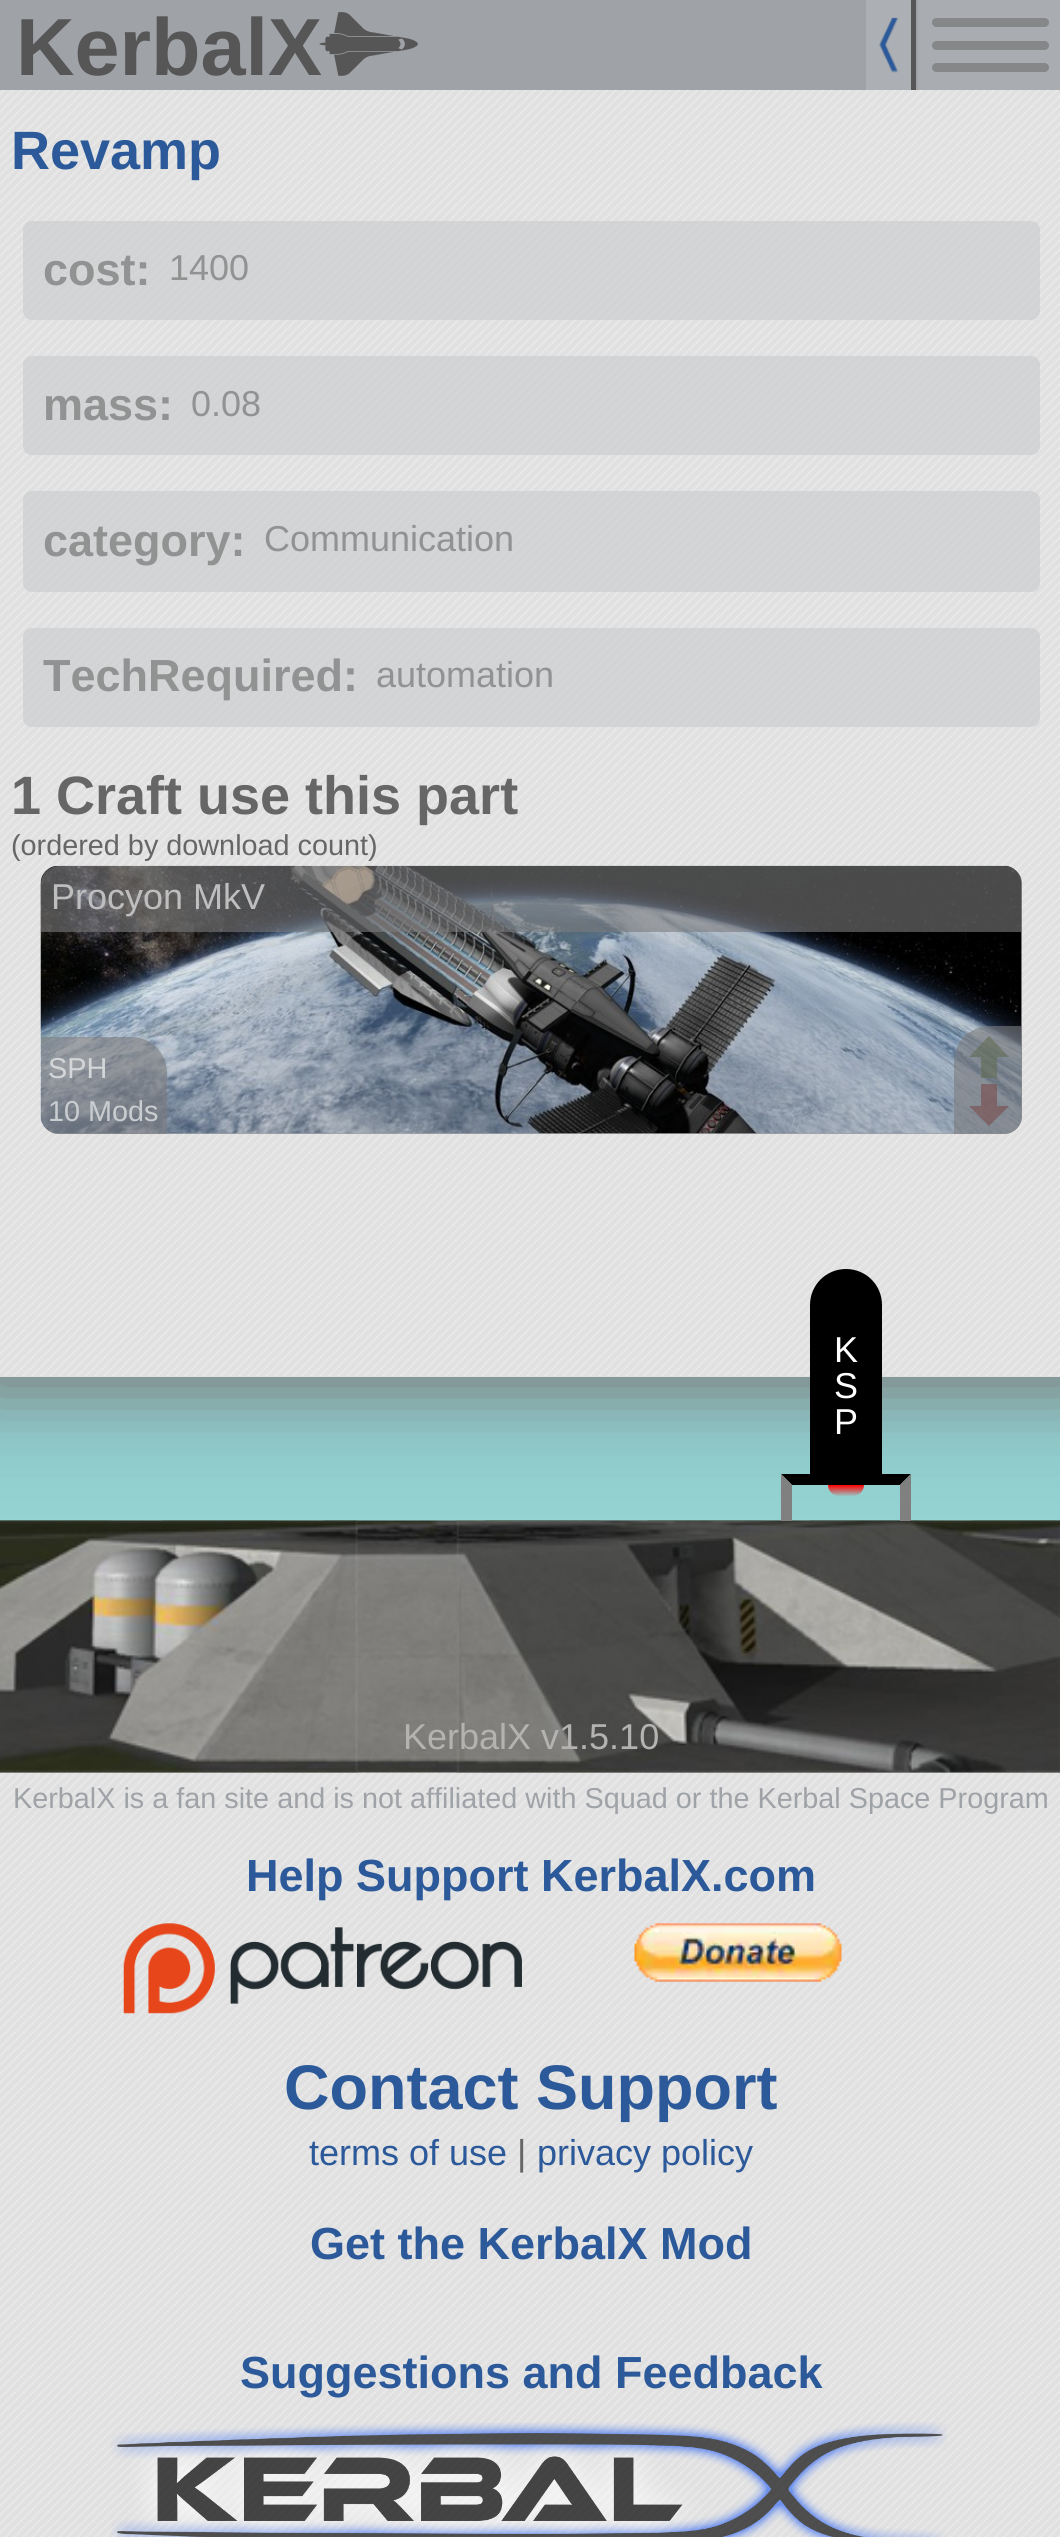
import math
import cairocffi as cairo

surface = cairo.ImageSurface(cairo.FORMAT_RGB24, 1060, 2537)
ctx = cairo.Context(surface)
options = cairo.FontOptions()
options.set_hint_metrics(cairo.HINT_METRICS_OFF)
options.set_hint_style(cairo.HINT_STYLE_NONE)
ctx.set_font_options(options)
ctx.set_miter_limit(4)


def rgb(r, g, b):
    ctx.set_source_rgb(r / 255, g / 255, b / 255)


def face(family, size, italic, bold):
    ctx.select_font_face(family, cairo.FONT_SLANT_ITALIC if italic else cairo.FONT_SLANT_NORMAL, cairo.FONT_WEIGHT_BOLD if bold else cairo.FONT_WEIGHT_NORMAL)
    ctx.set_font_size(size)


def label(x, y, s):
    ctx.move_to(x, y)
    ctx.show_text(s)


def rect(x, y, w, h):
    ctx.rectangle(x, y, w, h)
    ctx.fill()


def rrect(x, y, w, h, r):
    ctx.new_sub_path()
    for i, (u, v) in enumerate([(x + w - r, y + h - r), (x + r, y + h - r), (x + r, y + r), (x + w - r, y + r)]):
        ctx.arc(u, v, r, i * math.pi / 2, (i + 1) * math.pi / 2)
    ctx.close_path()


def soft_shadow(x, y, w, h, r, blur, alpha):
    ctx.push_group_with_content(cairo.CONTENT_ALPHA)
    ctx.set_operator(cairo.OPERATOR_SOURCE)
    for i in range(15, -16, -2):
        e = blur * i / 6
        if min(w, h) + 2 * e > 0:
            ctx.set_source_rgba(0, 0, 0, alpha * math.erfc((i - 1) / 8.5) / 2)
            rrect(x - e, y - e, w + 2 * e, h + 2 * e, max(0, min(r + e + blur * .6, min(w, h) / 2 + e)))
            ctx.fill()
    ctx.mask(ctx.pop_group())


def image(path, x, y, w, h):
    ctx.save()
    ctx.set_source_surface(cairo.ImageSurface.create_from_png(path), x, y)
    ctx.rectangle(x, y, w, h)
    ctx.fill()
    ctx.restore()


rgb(255, 255, 255)
ctx.paint()
image('image0.png', 0, 1772, 1060, 765)
gradient = cairo.LinearGradient(531, -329, 531, 1521)
gradient.add_color_stop_rgba(0, 0.059, 0.098, 0.196, 1)
gradient.add_color_stop_rgba(1, 0.584, 0.827, 0.824, 1)
ctx.set_source(gradient)
rect(0, 1377, 1060, 144)
rgb(128, 128, 128)
soft_shadow(-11, -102, 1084, 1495, 0, 34, 1)
rgb(224, 224, 224)
rect(0, 1376, 1060, 1)
image('image1.png', 0, 90, 1060, 1286)
rgb(159, 162, 167)
rect(0, 0, 918, 90)
face('Liberation Sans', 81, 0, 1)
rgb(86, 86, 87)
label(16, 75, 'KerbalX')
image('image2.png', 319, 12, 99, 64)
rgb(172, 175, 179)
rect(866, 0, 45, 90)
rgb(86, 86, 87)
rect(911, 0, 5, 90)
image('image3.png', 879, 17, 20, 56)
rgb(169, 172, 177)
rect(918, 0, 142, 90)
rgb(134, 135, 136)
rrect(932, 18, 117, 9, 4.5)
ctx.fill()
rrect(932, 41, 117, 9, 4.5)
ctx.fill()
rrect(932, 63, 117, 9, 4.5)
ctx.fill()
face('Liberation Sans', 54, 0, 1)
rgb(44, 89, 153)
label(11, 169, 'Revamp')
ctx.set_source_rgba(0.78, 0.788, 0.8, 0.6)
rrect(23, 221, 1017, 99, 9)
ctx.fill()
face('Liberation Sans', 45, 0, 1)
rgb(145, 146, 146)
label(43, 285, 'cost:')
face('Liberation Sans', 36, 0, 0)
label(169, 280, '1400')
ctx.set_source_rgba(0.78, 0.788, 0.8, 0.6)
rrect(23, 356, 1017, 99, 9)
ctx.fill()
face('Liberation Sans', 45, 0, 1)
rgb(145, 146, 146)
label(43, 420, 'mass:')
face('Liberation Sans', 36, 0, 0)
label(191, 416, '0.08')
ctx.set_source_rgba(0.78, 0.788, 0.8, 0.6)
rrect(23, 491, 1017, 101, 9)
ctx.fill()
face('Liberation Sans', 45, 0, 1)
rgb(145, 146, 146)
label(43, 556, 'category:')
face('Liberation Sans', 36, 0, 0)
label(264, 551, 'Communication')
ctx.set_source_rgba(0.78, 0.788, 0.8, 0.6)
rrect(23, 628, 1017, 99, 9)
ctx.fill()
face('Liberation Sans', 45, 0, 1)
rgb(145, 146, 146)
label(43, 691, 'TechRequired:')
face('Liberation Sans', 36, 0, 0)
label(376, 687, 'automation')
face('Liberation Sans', 54, 0, 1)
rgb(102, 102, 102)
label(11, 814, '1 Craft use this part')
face('Liberation Sans', 28.8, 0, 0)
label(11, 855, '(ordered by download count)')
rgb(159, 162, 167)
rrect(41, 866, 981, 268, 18)
ctx.fill()
image('image4.png', 40, 865, 982, 269)
ctx.save()
rrect(41, 866, 981, 268, 18)
ctx.clip()
ctx.set_source_rgba(0.486, 0.486, 0.49, 0.6)
ctx.new_path()
ctx.move_to(59, 866)
ctx.line_to(1019, 866)
ctx.curve_to(1029, 866, 1037, 874, 1037, 884)
ctx.line_to(1037, 932)
ctx.line_to(41, 932)
ctx.line_to(41, 884)
ctx.curve_to(41, 874, 49, 866, 59, 866)
ctx.close_path()
ctx.fill()
ctx.restore()
face('Liberation Sans', 36, 0, 0)
rgb(190, 190, 191)
label(51, 909, 'Procyon MkV')
ctx.set_source_rgba(0.486, 0.486, 0.49, 0.6)
ctx.new_path()
ctx.move_to(41, 1037)
ctx.line_to(131, 1037)
ctx.curve_to(151, 1037, 167, 1053, 167, 1073)
ctx.line_to(167, 1134)
ctx.line_to(59, 1134)
ctx.curve_to(49, 1134, 41, 1126, 41, 1116)
ctx.close_path()
ctx.fill()
face('Liberation Sans', 28.8, 0, 0)
rgb(212, 214, 216)
label(48, 1078, 'SPH')
rgb(202, 205, 208)
label(48, 1121, '10 Mods')
ctx.set_source_rgba(0.486, 0.486, 0.49, 0.6)
ctx.new_path()
ctx.move_to(990, 1026)
ctx.line_to(1022, 1026)
ctx.line_to(1022, 1116)
ctx.curve_to(1022, 1126, 1014, 1134, 1004, 1134)
ctx.line_to(954, 1134)
ctx.line_to(954, 1062)
ctx.curve_to(954, 1042, 970, 1026, 990, 1026)
ctx.close_path()
ctx.fill()
ctx.set_source_rgba(0.38, 0.42, 0.322, 0.6)
ctx.new_path()
ctx.move_to(989, 1036)
ctx.line_to(969, 1057)
ctx.line_to(981, 1057)
ctx.line_to(981, 1078)
ctx.line_to(997, 1078)
ctx.line_to(997, 1057)
ctx.line_to(1009, 1057)
ctx.close_path()
ctx.fill()
ctx.set_source_rgba(0.475, 0.298, 0.298, 0.6)
ctx.new_path()
ctx.move_to(989, 1126)
ctx.line_to(1009, 1106)
ctx.line_to(997, 1106)
ctx.line_to(997, 1084)
ctx.line_to(981, 1084)
ctx.line_to(981, 1106)
ctx.line_to(969, 1106)
ctx.close_path()
ctx.fill()
rgb(0, 0, 0)
rect(810, 1341, 72, 133)
ctx.new_path()
ctx.move_to(846, 1269)
ctx.curve_to(866, 1269, 882, 1285, 882, 1305)
ctx.line_to(882, 1341)
ctx.line_to(810, 1341)
ctx.line_to(810, 1305)
ctx.curve_to(810, 1285, 826, 1269, 846, 1269)
ctx.close_path()
ctx.fill()
face('Liberation Sans', 36, 0, 0)
rgb(255, 255, 255)
label(834, 1362, 'K')
label(834, 1398, 'S')
label(834, 1434, 'P')
gradient = cairo.LinearGradient(846, 1485, 846, 1496)
gradient.add_color_stop_rgba(0, 1, 0, 0, 1)
gradient.add_color_stop_rgba(1, 0.596, 0.773, 0.773, 1)
ctx.set_source(gradient)
ctx.new_path()
ctx.move_to(828, 1485)
ctx.line_to(864, 1485)
ctx.curve_to(864, 1491, 859, 1496, 853, 1496)
ctx.line_to(839, 1496)
ctx.curve_to(833, 1496, 828, 1491, 828, 1485)
ctx.close_path()
ctx.fill()
rgb(0, 0, 0)
ctx.new_path()
ctx.move_to(781, 1474)
ctx.line_to(911, 1474)
ctx.line_to(900, 1485)
ctx.line_to(792, 1485)
ctx.close_path()
ctx.fill()
image('image5.png', 0, 1772, 1060, 1)
image('image6.png', 0, 1520, 1060, 253)
image('image8.png', 456, 1520, 604, 253)
rgb(128, 128, 128)
ctx.new_path()
ctx.move_to(911, 1474)
ctx.line_to(911, 1521)
ctx.line_to(900, 1521)
ctx.line_to(900, 1485)
ctx.close_path()
ctx.fill()
ctx.new_path()
ctx.move_to(781, 1521)
ctx.line_to(781, 1474)
ctx.line_to(792, 1485)
ctx.line_to(792, 1521)
ctx.close_path()
ctx.fill()
image('image7.png', 0, 1520, 358, 253)
rgb(180, 179, 178)
label(403, 1749, 'KerbalX v1.5.10')
face('Liberation Sans', 28.8, 0, 0)
rgb(159, 162, 167)
label(13, 1808, 'KerbalX is a fan site and is not affiliated with Squad or the Kerbal Space Program')
face('Liberation Sans', 45, 0, 1)
rgb(44, 89, 153)
label(246, 1891, 'Help Support KerbalX.com')
image('image9.png', 123, 1923, 399, 91)
image('image10.png', 634, 1923, 208, 59)
face('Liberation Sans', 63, 0, 1)
label(284, 2109, 'Contact Support')
face('Liberation Sans', 36, 0, 0)
label(309, 2165, 'terms of use')
rgb(102, 102, 102)
label(517, 2165, '|')
rgb(44, 89, 153)
label(537, 2165, 'privacy policy')
face('Liberation Sans', 45, 0, 1)
label(310, 2259, 'Get the KerbalX Mod')
label(240, 2388, 'Suggestions and Feedback')
image('image11.png', 111, 2422, 836, 115)
surface.write_to_png('render.png')
